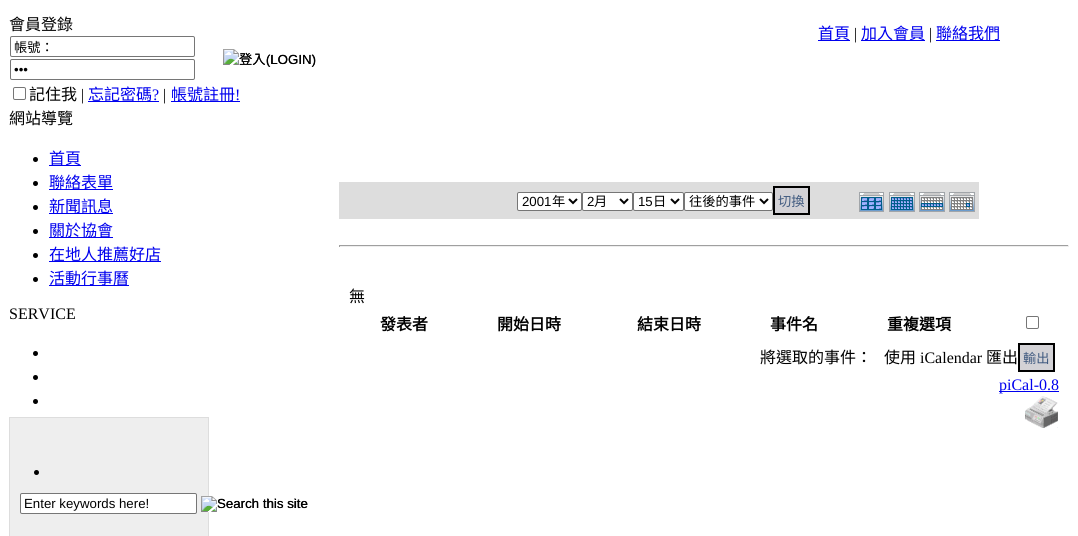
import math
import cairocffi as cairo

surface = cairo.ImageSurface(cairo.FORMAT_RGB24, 1078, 536)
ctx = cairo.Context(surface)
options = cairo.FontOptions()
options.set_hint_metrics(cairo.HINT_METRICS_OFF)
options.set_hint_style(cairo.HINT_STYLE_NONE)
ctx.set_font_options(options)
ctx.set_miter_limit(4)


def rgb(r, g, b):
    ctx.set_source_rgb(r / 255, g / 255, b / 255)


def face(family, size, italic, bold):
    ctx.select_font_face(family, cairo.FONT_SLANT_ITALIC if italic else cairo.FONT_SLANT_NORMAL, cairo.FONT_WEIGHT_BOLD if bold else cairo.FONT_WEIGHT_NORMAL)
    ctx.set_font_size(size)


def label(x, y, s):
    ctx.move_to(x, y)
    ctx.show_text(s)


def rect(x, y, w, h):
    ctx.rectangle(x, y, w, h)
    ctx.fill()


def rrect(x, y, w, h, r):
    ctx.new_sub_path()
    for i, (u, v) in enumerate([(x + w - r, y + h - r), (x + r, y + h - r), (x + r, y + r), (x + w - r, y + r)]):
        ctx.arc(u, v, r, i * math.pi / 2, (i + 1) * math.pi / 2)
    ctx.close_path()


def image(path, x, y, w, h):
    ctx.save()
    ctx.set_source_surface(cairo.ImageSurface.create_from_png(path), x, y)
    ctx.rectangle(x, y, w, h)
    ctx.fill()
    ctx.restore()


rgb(255, 255, 255)
ctx.paint()
face('Noto Sans CJK TC', 16, 0, 0)
rgb(0, 0, 0)
label(9, 30, '會員登錄')
rrect(10.5, 36.5, 184, 20, 1.5)
rgb(118, 118, 118)
ctx.set_line_width(1)
ctx.stroke()
face('Noto Sans CJK TC', 13.25, 0, 0)
rgb(0, 0, 0)
label(14, 52, '帳號：')
image('image0.png', 223, 49, 93, 18)
label(239, 64, '登入')
face('Liberation Sans', 13.25, 0, 0)
label(266, 64, '(LOGIN)')
rrect(10.5, 59.5, 184, 20, 1.5)
rgb(118, 118, 118)
ctx.stroke()
rgb(0, 0, 0)
label(14, 74, '•••')
rrect(13.5, 87.5, 12, 12, 1.5)
rgb(118, 118, 118)
ctx.stroke()
face('Noto Sans CJK TC', 16, 0, 0)
rgb(0, 0, 0)
label(29, 100, '記住我')
face('Liberation Serif', 16, 0, 0)
label(81, 100, '|')
rgb(0, 0, 238)
rect(88, 101, 71, 1)
face('Noto Sans CJK TC', 16, 0, 0)
label(88, 100, '忘記密碼')
face('Liberation Serif', 16, 0, 0)
label(152, 100, '?')
rgb(0, 0, 0)
label(163, 100, '|')
rgb(0, 0, 238)
rect(171, 101, 69, 1)
face('Noto Sans CJK TC', 16, 0, 0)
label(171, 100, '帳號註冊')
face('Liberation Serif', 16, 0, 0)
label(235, 100, '!')
face('Noto Sans CJK TC', 16, 0, 0)
rgb(0, 0, 0)
label(9, 124, '網站導覽')
ctx.new_path()
ctx.arc(35.5, 159.5, 2.5, 0, 2 * math.pi)
ctx.fill()
rgb(0, 0, 238)
rect(49, 165, 32, 1)
label(49, 164, '首頁')
rgb(0, 0, 0)
ctx.new_path()
ctx.arc(35.5, 183.5, 2.5, 0, 2 * math.pi)
ctx.fill()
rgb(0, 0, 238)
rect(49, 189, 64, 1)
label(49, 188, '聯絡表單')
rgb(0, 0, 0)
ctx.new_path()
ctx.arc(35.5, 207.5, 2.5, 0, 2 * math.pi)
ctx.fill()
rgb(0, 0, 238)
rect(49, 213, 64, 1)
label(49, 212, '新聞訊息')
rgb(0, 0, 0)
ctx.new_path()
ctx.arc(35.5, 231.5, 2.5, 0, 2 * math.pi)
ctx.fill()
rgb(0, 0, 238)
rect(49, 237, 64, 1)
label(49, 236, '關於協會')
rgb(0, 0, 0)
ctx.new_path()
ctx.arc(35.5, 255.5, 2.5, 0, 2 * math.pi)
ctx.fill()
rgb(0, 0, 238)
rect(49, 261, 112, 1)
label(49, 260, '在地人推薦好店')
rgb(0, 0, 0)
ctx.new_path()
ctx.arc(35.5, 279.5, 2.5, 0, 2 * math.pi)
ctx.fill()
rgb(0, 0, 238)
rect(49, 285, 80, 1)
label(49, 284, '活動行事曆')
face('Liberation Serif', 16, 0, 0)
rgb(0, 0, 0)
label(9, 319, 'SERVICE')
ctx.new_path()
ctx.arc(35.5, 353.5, 2.5, 0, 2 * math.pi)
ctx.fill()
ctx.arc(35.5, 377.5, 2.5, 0, 2 * math.pi)
ctx.fill()
ctx.arc(35.5, 401.5, 2.5, 0, 2 * math.pi)
ctx.fill()
rgb(238, 238, 238)
ctx.rectangle(9.5, 417.5, 199, 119)
ctx.fill_preserve()
rgb(221, 221, 221)
ctx.stroke()
rgb(0, 0, 0)
ctx.arc(36.5, 472.5, 2.5, 0, 2 * math.pi)
ctx.fill()
rgb(221, 221, 221)
rect(339, 182, 640, 37)
rgb(255, 255, 255)
rrect(517.5, 192.5, 64, 18, 1.5)
ctx.fill_preserve()
rgb(118, 118, 118)
ctx.stroke()
ctx.new_path()
ctx.move_to(569, 199)
ctx.line_to(573, 203)
ctx.line_to(577, 199)
rgb(0, 0, 0)
ctx.set_line_width(2)
ctx.stroke()
face('Liberation Sans', 13.25, 0, 0)
label(522, 206, '2001')
face('Noto Sans CJK TC', 13.25, 0, 0)
label(552, 206, '年')
rgb(255, 255, 255)
rrect(582.5, 192.5, 50, 18, 1.5)
ctx.fill_preserve()
rgb(118, 118, 118)
ctx.set_line_width(1)
ctx.stroke()
ctx.new_path()
ctx.move_to(620, 199)
ctx.line_to(624, 203)
ctx.line_to(628, 199)
rgb(0, 0, 0)
ctx.set_line_width(2)
ctx.stroke()
face('Liberation Sans', 13.25, 0, 0)
label(587, 206, '2')
face('Noto Sans CJK TC', 13.25, 0, 0)
label(594, 206, '月')
rgb(255, 255, 255)
rrect(633.5, 192.5, 50, 18, 1.5)
ctx.fill_preserve()
rgb(118, 118, 118)
ctx.set_line_width(1)
ctx.stroke()
ctx.new_path()
ctx.move_to(671, 199)
ctx.line_to(675, 203)
ctx.line_to(679, 199)
rgb(0, 0, 0)
ctx.set_line_width(2)
ctx.stroke()
face('Liberation Sans', 13.25, 0, 0)
label(638, 206, '15')
face('Noto Sans CJK TC', 13.25, 0, 0)
label(653, 206, '日')
rgb(255, 255, 255)
rrect(684.5, 192.5, 88, 18, 1.5)
ctx.fill_preserve()
rgb(118, 118, 118)
ctx.set_line_width(1)
ctx.stroke()
ctx.new_path()
ctx.move_to(760, 199)
ctx.line_to(764, 203)
ctx.line_to(768, 199)
rgb(0, 0, 0)
ctx.set_line_width(2)
ctx.stroke()
label(689, 206, '往後的事件')
rgb(211, 210, 214)
ctx.rectangle(774, 187, 35, 27)
ctx.fill_preserve()
rgb(0, 0, 0)
ctx.stroke()
rgb(64, 90, 128)
label(778, 206, '切換')
image('image1.png', 859, 192, 25, 20)
image('image2.png', 889, 192, 26, 20)
image('image3.png', 919, 192, 26, 20)
image('image4.png', 949, 192, 26, 20)
rgb(159, 159, 159)
rect(339, 245, 730, 1)
rgb(238, 238, 238)
rect(1068, 245, 1, 2)
rect(339, 246, 730, 1)
rgb(159, 159, 159)
rect(339, 245, 1, 2)
face('Noto Sans CJK TC', 16, 0, 0)
rgb(0, 0, 0)
label(349, 302, '無')
face('Noto Sans CJK TC', 16, 0, 1)
label(380, 330, '發表者')
label(497, 330, '開始日時')
label(637, 330, '結束日時')
label(770, 330, '事件名')
label(887, 330, '重複選項')
rrect(1026.5, 316.5, 12, 12, 1.5)
rgb(118, 118, 118)
ctx.set_line_width(1)
ctx.stroke()
face('Noto Sans CJK TC', 16, 0, 0)
rgb(0, 0, 0)
label(760, 363, '將選取的事件：')
label(884, 363, '使用')
face('Liberation Serif', 16, 0, 0)
label(920, 363, 'iCalendar')
face('Noto Sans CJK TC', 16, 0, 0)
label(986, 363, '匯出')
rgb(211, 210, 214)
ctx.rectangle(1019, 344, 35, 27)
ctx.fill_preserve()
rgb(0, 0, 0)
ctx.set_line_width(2)
ctx.stroke()
face('Noto Sans CJK TC', 13.25, 0, 0)
rgb(64, 90, 128)
label(1023, 363, '輸出')
rgb(0, 0, 238)
rect(999, 391, 60, 1)
face('Liberation Serif', 16, 0, 0)
label(999, 390, 'piCal-0.8')
image('image5.png', 1025, 396, 33, 32)
rect(818, 40, 32, 1)
face('Noto Sans CJK TC', 16, 0, 0)
label(818, 39, '首頁')
face('Liberation Serif', 16, 0, 0)
rgb(0, 0, 0)
label(854, 39, '|')
rgb(0, 0, 238)
rect(861, 40, 64, 1)
face('Noto Sans CJK TC', 16, 0, 0)
label(861, 39, '加入會員')
face('Liberation Serif', 16, 0, 0)
rgb(0, 0, 0)
label(929, 39, '|')
rgb(0, 0, 238)
rect(936, 40, 64, 1)
face('Noto Sans CJK TC', 16, 0, 0)
label(936, 39, '聯絡我們')
rgb(255, 255, 255)
rrect(20.5, 493.5, 176, 20, 1.5)
ctx.fill_preserve()
rgb(118, 118, 118)
ctx.set_line_width(1)
ctx.stroke()
face('Liberation Sans', 13.25, 0, 0)
rgb(0, 0, 0)
label(24, 508, 'Enter keywords here!')
rgb(255, 255, 255)
rect(207, 496, 2, 16)
image('image6.png', 201, 496, 107, 16)
rgb(0, 0, 0)
label(217, 508, 'Search this site')
surface.write_to_png('render.png')
